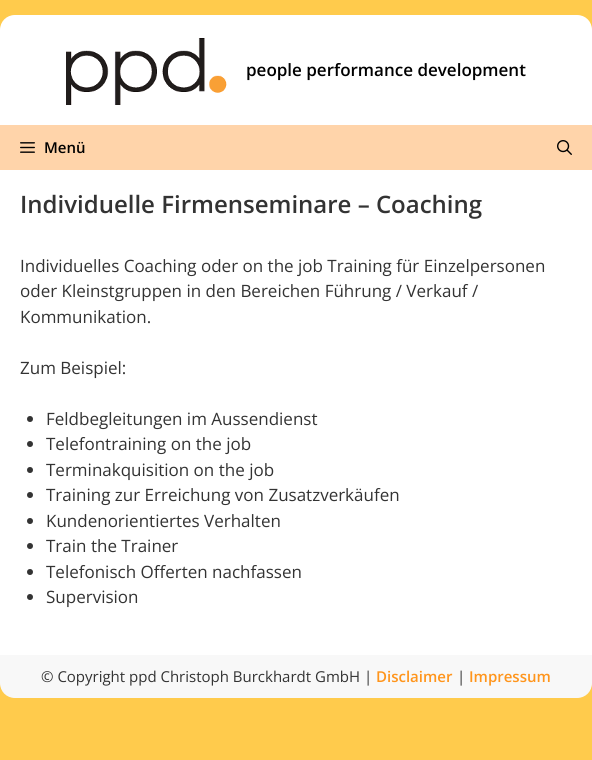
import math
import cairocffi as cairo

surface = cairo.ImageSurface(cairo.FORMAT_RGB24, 592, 760)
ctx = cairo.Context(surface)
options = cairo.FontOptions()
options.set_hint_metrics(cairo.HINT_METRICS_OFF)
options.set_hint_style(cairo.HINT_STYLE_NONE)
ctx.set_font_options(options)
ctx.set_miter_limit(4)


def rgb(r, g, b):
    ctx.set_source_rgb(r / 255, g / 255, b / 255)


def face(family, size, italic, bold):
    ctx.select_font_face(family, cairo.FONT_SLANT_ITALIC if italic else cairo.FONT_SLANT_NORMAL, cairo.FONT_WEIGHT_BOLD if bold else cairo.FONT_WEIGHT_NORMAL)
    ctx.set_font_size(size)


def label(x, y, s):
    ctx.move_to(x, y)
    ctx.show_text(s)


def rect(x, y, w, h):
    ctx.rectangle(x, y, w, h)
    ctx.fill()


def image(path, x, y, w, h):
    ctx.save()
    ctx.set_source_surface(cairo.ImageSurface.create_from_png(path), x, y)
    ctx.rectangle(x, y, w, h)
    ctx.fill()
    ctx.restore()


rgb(255, 203, 76)
ctx.paint()
rgb(255, 255, 255)
ctx.new_path()
ctx.move_to(15, 15)
ctx.line_to(577, 15)
ctx.curve_to(585.5, 15, 592, 21.5, 592, 30)
ctx.line_to(592, 125)
ctx.line_to(0, 125)
ctx.line_to(0, 30)
ctx.curve_to(0, 21.5, 6.5, 15, 15, 15)
ctx.close_path()
ctx.fill()
image('image0.png', 66, 38, 161, 67)
face('Open Sans SemiBold', 17, 0, 0)
rgb(0, 0, 0)
label(246, 76, 'people performance development')
rgb(255, 212, 170)
rect(0, 125, 592, 45)
image('image1.png', 20, 142, 15, 11)
face('Open Sans SemiBold', 15, 0, 0)
rgb(0, 0, 0)
label(44, 153, 'Menü')
image('image2.png', 557, 140, 15, 15)
rgb(255, 255, 255)
rect(0, 170, 592, 485)
face('Open Sans SemiBold', 24, 0, 0)
rgb(51, 51, 51)
label(20, 213, 'Individuelle Firmenseminare – Coaching')
face('Open Sans', 17, 0, 0)
label(20, 272, 'Individuelles Coaching oder on the job Training für Einzelpersonen')
label(20, 297, 'oder Kleinstgruppen in den Bereichen Führung / Verkauf /')
label(20, 323, 'Kommunikation.')
label(20, 374, 'Zum Beispiel:')
ctx.new_path()
ctx.arc(30, 419, 3, 0, 2 * math.pi)
ctx.fill()
label(46, 425, 'Feldbegleitungen im Aussendienst')
ctx.new_path()
ctx.arc(30, 444, 3, 0, 2 * math.pi)
ctx.fill()
label(46, 450, 'Telefontraining on the job')
ctx.new_path()
ctx.arc(30, 470, 3, 0, 2 * math.pi)
ctx.fill()
label(46, 476, 'Terminakquisition on the job')
ctx.new_path()
ctx.arc(30, 495, 3, 0, 2 * math.pi)
ctx.fill()
label(46, 501, 'Training zur Erreichung von Zusatzverkäufen')
ctx.new_path()
ctx.arc(30, 521, 3, 0, 2 * math.pi)
ctx.fill()
label(46, 527, 'Kundenorientiertes Verhalten')
ctx.new_path()
ctx.arc(30, 546, 3, 0, 2 * math.pi)
ctx.fill()
label(46, 552, 'Train the Trainer')
ctx.new_path()
ctx.arc(30, 572, 3, 0, 2 * math.pi)
ctx.fill()
label(46, 578, 'Telefonisch Offerten nachfassen')
ctx.new_path()
ctx.arc(30, 597, 3, 0, 2 * math.pi)
ctx.fill()
label(46, 603, 'Supervision')
rgb(248, 248, 248)
ctx.new_path()
ctx.move_to(0, 655)
ctx.line_to(592, 655)
ctx.line_to(592, 683)
ctx.curve_to(592, 691.5, 585.5, 698, 577, 698)
ctx.line_to(15, 698)
ctx.curve_to(6.5, 698, 0, 691.5, 0, 683)
ctx.close_path()
ctx.fill()
face('Open Sans', 15, 0, 0)
rgb(51, 51, 51)
label(41, 682, '© Copyright ppd Christoph Burckhardt GmbH |')
face('Open Sans SemiBold', 15, 0, 0)
rgb(255, 149, 28)
label(376, 682, 'Disclaimer')
face('Open Sans', 15, 0, 0)
rgb(51, 51, 51)
label(457, 682, '|')
face('Open Sans SemiBold', 15, 0, 0)
rgb(255, 149, 28)
label(469, 682, 'Impressum')
surface.write_to_png('render.png')
